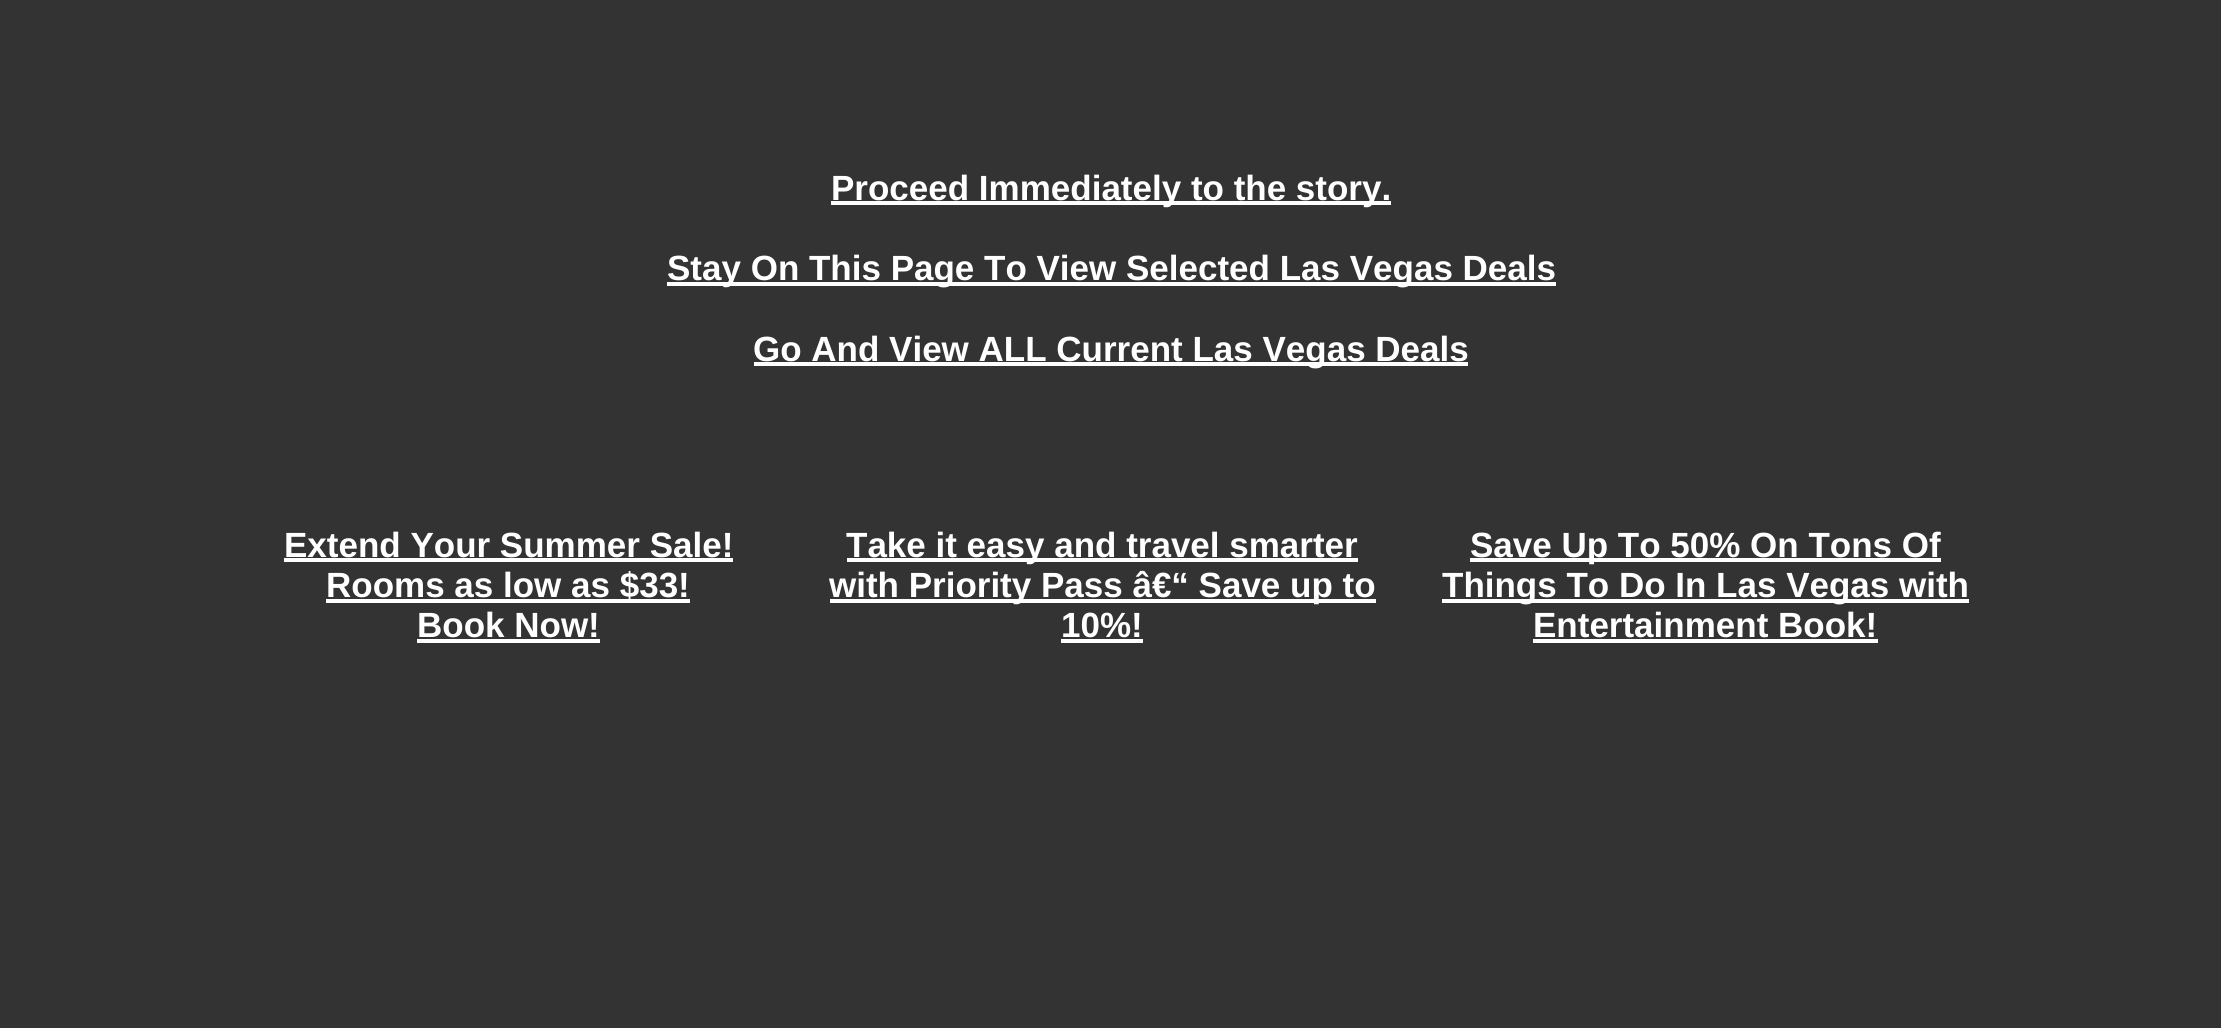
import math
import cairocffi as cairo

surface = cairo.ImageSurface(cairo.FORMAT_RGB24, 2221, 1028)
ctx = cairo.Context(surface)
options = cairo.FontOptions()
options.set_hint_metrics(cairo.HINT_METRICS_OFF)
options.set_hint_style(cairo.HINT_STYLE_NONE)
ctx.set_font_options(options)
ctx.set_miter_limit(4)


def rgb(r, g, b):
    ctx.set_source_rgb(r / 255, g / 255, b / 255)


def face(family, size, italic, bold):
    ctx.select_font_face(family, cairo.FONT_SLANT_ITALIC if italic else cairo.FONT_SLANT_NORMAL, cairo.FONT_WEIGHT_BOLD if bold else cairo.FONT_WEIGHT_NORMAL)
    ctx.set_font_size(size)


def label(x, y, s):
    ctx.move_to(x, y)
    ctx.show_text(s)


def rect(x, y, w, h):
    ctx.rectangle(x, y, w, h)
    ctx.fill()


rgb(51, 51, 51)
ctx.paint()
rgb(255, 255, 255)
rect(831, 201, 560, 4)
face('Liberation Sans', 35, 0, 1)
label(831, 200, 'Proceed Immediately to the story.')
rect(667, 282, 889, 4)
label(667, 280, 'Stay On This Page To View Selected Las Vegas Deals')
rect(754, 362, 714, 4)
label(753, 361, 'Go And View ALL Current Las Vegas Deals')
label(284, 557, 'Extend Your Summer Sale!')
rect(284, 558, 449, 4)
rect(326, 599, 364, 4)
label(326, 597, 'Rooms as low as $33!')
label(417, 637, 'Book Now!')
rect(417, 639, 183, 4)
rect(847, 558, 511, 4)
label(846, 557, 'Take it easy and travel smarter')
rect(830, 599, 546, 4)
label(829, 597, 'with Priority Pass â€“ Save up to')
label(1061, 637, '10%!')
rect(1061, 639, 82, 4)
rect(1470, 558, 471, 4)
label(1470, 557, 'Save Up To 50% On Tons Of')
rect(1442, 599, 527, 4)
label(1442, 597, 'Things To Do In Las Vegas with')
label(1533, 637, 'Entertainment Book!')
rect(1533, 639, 345, 4)
surface.write_to_png('render.png')
